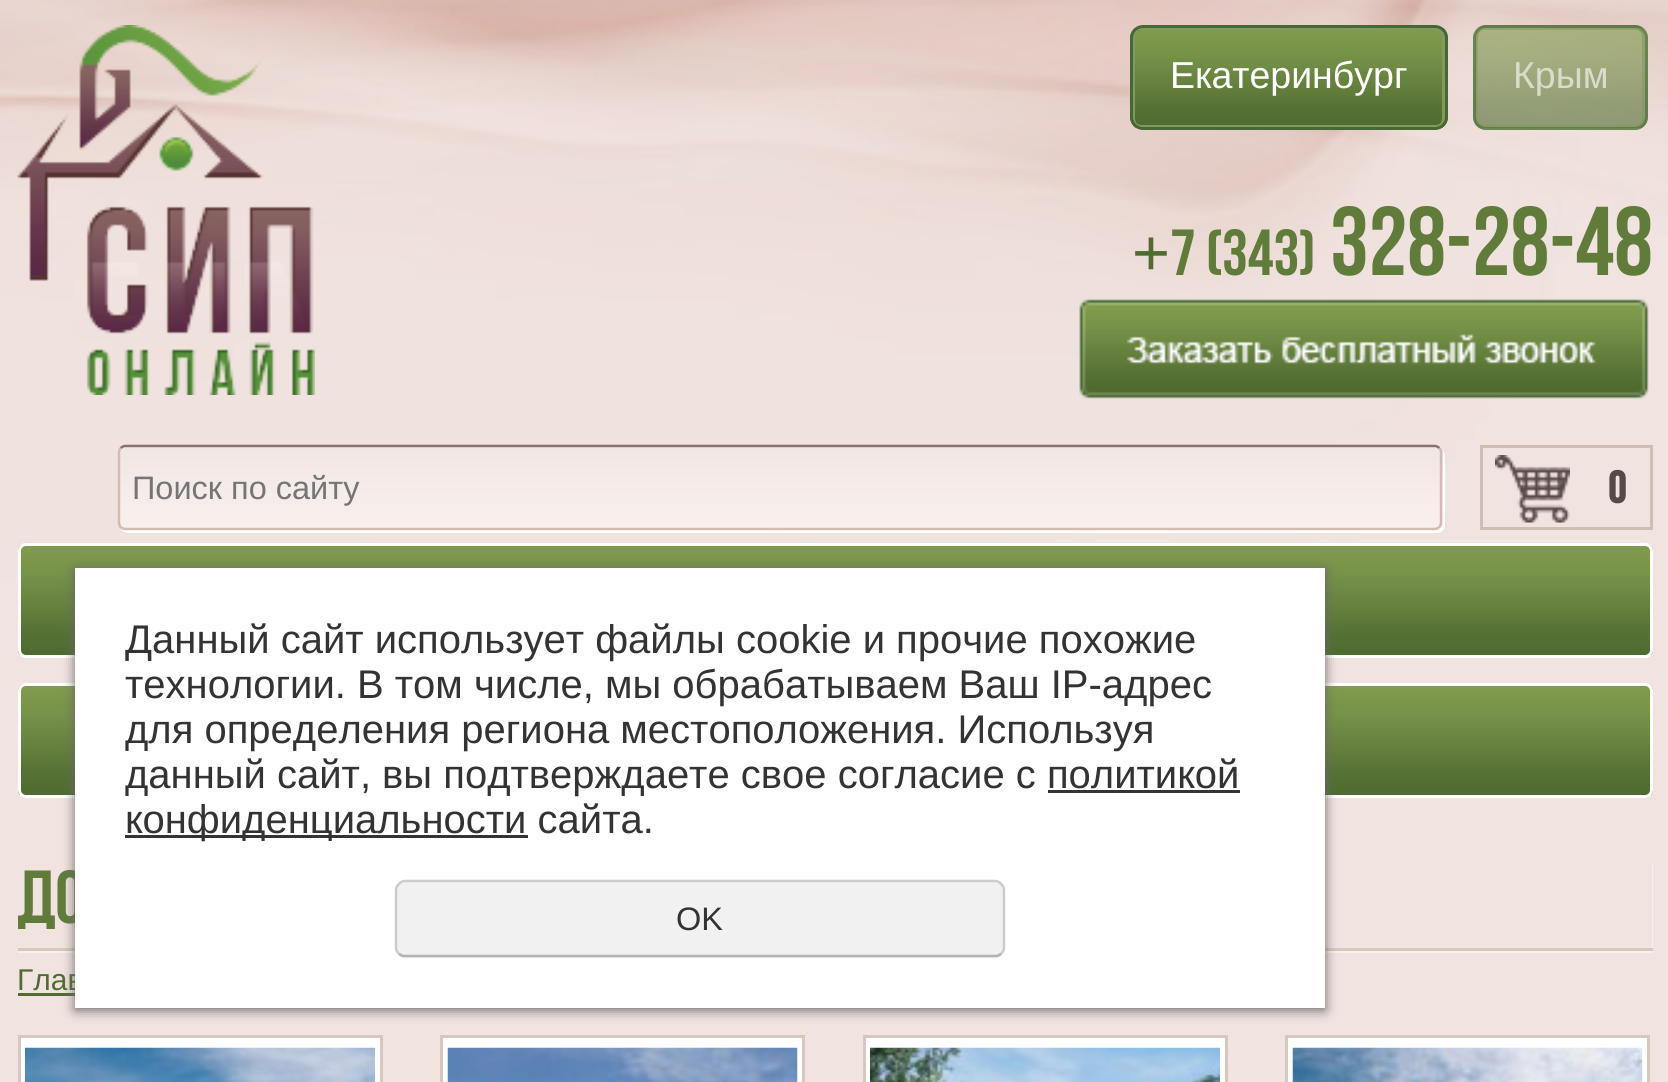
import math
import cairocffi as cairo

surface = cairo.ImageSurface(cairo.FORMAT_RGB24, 1668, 1082)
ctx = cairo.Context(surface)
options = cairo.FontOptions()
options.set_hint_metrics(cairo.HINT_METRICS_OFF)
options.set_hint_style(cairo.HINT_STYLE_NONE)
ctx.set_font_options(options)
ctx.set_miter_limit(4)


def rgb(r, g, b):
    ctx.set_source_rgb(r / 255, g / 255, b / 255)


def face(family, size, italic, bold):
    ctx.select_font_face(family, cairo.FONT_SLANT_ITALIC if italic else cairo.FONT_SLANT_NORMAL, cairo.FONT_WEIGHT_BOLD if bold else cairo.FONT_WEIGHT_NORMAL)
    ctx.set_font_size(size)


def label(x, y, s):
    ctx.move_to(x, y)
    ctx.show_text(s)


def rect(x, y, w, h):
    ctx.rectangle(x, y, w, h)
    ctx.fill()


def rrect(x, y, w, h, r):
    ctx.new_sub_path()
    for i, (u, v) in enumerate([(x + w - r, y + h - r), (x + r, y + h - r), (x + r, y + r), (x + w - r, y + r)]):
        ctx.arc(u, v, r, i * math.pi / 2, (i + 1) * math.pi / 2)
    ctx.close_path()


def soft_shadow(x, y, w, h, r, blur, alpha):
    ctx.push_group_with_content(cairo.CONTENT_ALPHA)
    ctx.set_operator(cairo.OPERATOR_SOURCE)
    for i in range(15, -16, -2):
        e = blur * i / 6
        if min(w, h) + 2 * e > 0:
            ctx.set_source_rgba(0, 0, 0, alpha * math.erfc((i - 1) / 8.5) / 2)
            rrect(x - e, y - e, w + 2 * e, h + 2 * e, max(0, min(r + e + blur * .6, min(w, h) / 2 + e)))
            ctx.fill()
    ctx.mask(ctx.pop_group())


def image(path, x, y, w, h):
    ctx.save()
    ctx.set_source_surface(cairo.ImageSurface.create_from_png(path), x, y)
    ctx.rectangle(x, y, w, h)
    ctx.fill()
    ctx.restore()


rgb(255, 255, 255)
ctx.paint()
image('image0.png', 0, 0, 1668, 1082)
image('image1.png', 17, 25, 298, 370)
ctx.save()
rrect(1130, 25, 318, 105, 13)
ctx.clip()
gradient = cairo.LinearGradient(1289, 27, 1289, 128)
gradient.add_color_stop_rgba(0, 0.506, 0.612, 0.31, 1)
gradient.add_color_stop_rgba(0.21, 0.475, 0.576, 0.286, 1)
gradient.add_color_stop_rgba(0.24, 0.471, 0.58, 0.29, 1)
gradient.add_color_stop_rgba(0.65, 0.38, 0.482, 0.227, 1)
gradient.add_color_stop_rgba(0.76, 0.341, 0.451, 0.212, 1)
gradient.add_color_stop_rgba(1, 0.306, 0.416, 0.184, 1)
ctx.set_source(gradient)
rect(1130, 28, 318, 100)
ctx.restore()
rgb(131, 154, 95)
ctx.new_path()
ctx.move_to(1133, 120)
ctx.curve_to(1134, 124, 1138, 128, 1143, 128)
ctx.line_to(1435, 128)
ctx.curve_to(1441, 128, 1445, 124, 1445, 118)
ctx.line_to(1445, 115)
ctx.curve_to(1445, 121, 1441, 125, 1435, 125)
ctx.line_to(1142, 125)
ctx.curve_to(1138, 125, 1135, 123, 1133, 120)
ctx.close_path()
ctx.fill()
ctx.new_path()
ctx.move_to(1142, 30)
ctx.line_to(1435, 30)
ctx.curve_to(1441, 30, 1445, 34, 1445, 40)
ctx.line_to(1445, 38)
ctx.curve_to(1445, 32, 1441, 28, 1435, 28)
ctx.line_to(1143, 28)
ctx.curve_to(1139, 28, 1135, 31, 1134, 35)
ctx.curve_to(1135, 32, 1139, 30, 1142, 30)
ctx.close_path()
ctx.fill()
ctx.new_path()
ctx.move_to(1432, 128)
ctx.curve_to(1448, 128, 1445, 117, 1445, 105)
ctx.line_to(1445, 51)
ctx.curve_to(1445, 39, 1448, 28, 1432, 28)
ctx.curve_to(1438, 28, 1442, 32, 1442, 38)
ctx.line_to(1442, 118)
ctx.curve_to(1442, 123, 1438, 128, 1432, 128)
ctx.close_path()
ctx.fill()
ctx.new_path()
ctx.move_to(1143, 28)
ctx.curve_to(1137, 28, 1133, 32, 1133, 38)
ctx.line_to(1133, 118)
ctx.curve_to(1133, 124, 1137, 128, 1143, 128)
ctx.line_to(1145, 128)
ctx.curve_to(1139, 128, 1135, 123, 1135, 118)
ctx.line_to(1135, 38)
ctx.curve_to(1135, 32, 1139, 28, 1145, 28)
ctx.close_path()
ctx.fill()
rrect(1131.5, 26.5, 315, 102, 11.5)
rgb(71, 103, 54)
ctx.set_line_width(3)
ctx.stroke()
face('Liberation Sans', 37.5, 0, 0)
rgb(255, 255, 255)
label(1170, 88, 'Екатеринбург')
ctx.set_source_rgba(0.514, 0.604, 0.373, 0.6)
ctx.new_path()
ctx.move_to(1475, 115)
ctx.line_to(1475, 118)
ctx.curve_to(1475, 124, 1479, 128, 1485, 128)
ctx.line_to(1635, 128)
ctx.curve_to(1641, 128, 1645, 124, 1645, 118)
ctx.line_to(1645, 115)
ctx.curve_to(1645, 121, 1641, 125, 1635, 125)
ctx.line_to(1485, 125)
ctx.curve_to(1479, 125, 1475, 121, 1475, 115)
ctx.close_path()
ctx.fill()
ctx.new_path()
ctx.move_to(1485, 30)
ctx.line_to(1635, 30)
ctx.curve_to(1641, 30, 1645, 34, 1645, 40)
ctx.line_to(1645, 38)
ctx.curve_to(1645, 32, 1641, 28, 1635, 28)
ctx.line_to(1485, 28)
ctx.curve_to(1479, 28, 1475, 32, 1475, 38)
ctx.line_to(1475, 40)
ctx.curve_to(1475, 34, 1479, 30, 1485, 30)
ctx.close_path()
ctx.fill()
ctx.new_path()
ctx.move_to(1632, 128)
ctx.curve_to(1648, 128, 1645, 117, 1645, 105)
ctx.line_to(1645, 51)
ctx.curve_to(1645, 39, 1648, 28, 1632, 28)
ctx.curve_to(1638, 28, 1642, 32, 1642, 38)
ctx.line_to(1642, 118)
ctx.curve_to(1642, 123, 1638, 128, 1632, 128)
ctx.close_path()
ctx.fill()
ctx.new_path()
ctx.move_to(1485, 28)
ctx.curve_to(1479, 28, 1475, 32, 1475, 38)
ctx.line_to(1475, 118)
ctx.curve_to(1475, 124, 1479, 128, 1485, 128)
ctx.line_to(1488, 128)
ctx.curve_to(1482, 128, 1478, 123, 1478, 118)
ctx.line_to(1478, 38)
ctx.curve_to(1478, 32, 1482, 28, 1488, 28)
ctx.close_path()
ctx.fill()
rrect(1474.5, 26.5, 172, 102, 11.5)
ctx.set_source_rgba(0.278, 0.404, 0.212, 0.6)
ctx.stroke()
rgb(216, 220, 202)
label(1513, 88, 'Крым')
face('Liberation Sans', 65, 0, 0)
rgb(81, 108, 49)
label(1132, 275, '+')
face('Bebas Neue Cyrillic', 65, 0, 0)
rgb(96, 123, 58)
label(1170, 275, '7 (343)')
face('Bebas Neue Cyrillic', 97.5, 0, 0)
label(1330, 275, '328-28-48')
image('image2.png', 1079, 299, 570, 100)
rgb(255, 255, 255)
ctx.new_path()
ctx.move_to(121, 529)
ctx.curve_to(122, 531, 125, 533, 128, 533)
ctx.line_to(1437, 533)
ctx.curve_to(1441, 533, 1445, 529, 1445, 525)
ctx.line_to(1445, 456)
ctx.curve_to(1445, 453, 1444, 451, 1442, 450)
ctx.line_to(1442, 452)
ctx.line_to(1442, 522)
ctx.curve_to(1442, 527, 1439, 530, 1435, 530)
ctx.line_to(125, 530)
ctx.curve_to(124, 530, 122, 530, 121, 529)
ctx.close_path()
ctx.fill()
ctx.save()
rrect(118, 445, 1325, 85, 8)
ctx.clip()
gradient = cairo.LinearGradient(780, 367, 780, 448)
gradient.add_color_stop_rgba(0, 0.945, 0.902, 0.886, 1)
gradient.add_color_stop_rgba(1, 0.976, 0.941, 0.933, 1)
ctx.set_source(gradient)
rect(118, 445, 1325, 3)
gradient = cairo.LinearGradient(780, 447, 780, 528)
gradient.add_color_stop_rgba(0, 0.945, 0.902, 0.886, 1)
gradient.add_color_stop_rgba(1, 0.976, 0.941, 0.933, 1)
ctx.set_source(gradient)
rect(118, 448, 1325, 80)
ctx.restore()
ctx.new_path()
ctx.move_to(120.5, 448)
ctx.curve_to(122, 447, 123.5, 446, 125, 446)
ctx.line_to(1435, 446)
ctx.curve_to(1436.5, 446, 1438, 447, 1439.5, 448)
rgb(139, 112, 112)
ctx.set_line_width(2.5)
ctx.stroke()
ctx.new_path()
ctx.move_to(1439.5, 448)
ctx.curve_to(1440.5, 449.5, 1441, 451, 1441, 452.5)
ctx.line_to(1441, 522.5)
ctx.curve_to(1441, 524, 1440.5, 525.5, 1439.5, 527)
ctx.curve_to(1438, 528, 1436.5, 529, 1435, 529)
ctx.line_to(125, 529)
ctx.curve_to(123.5, 529, 122, 528, 120.5, 527)
ctx.curve_to(119.5, 525.5, 119, 524, 119, 522.5)
ctx.line_to(119, 452.5)
ctx.curve_to(119, 451, 119.5, 449.5, 120.5, 448)
rgb(210, 187, 179)
ctx.stroke()
face('Liberation Sans', 32.5, 0, 0)
rgb(117, 117, 117)
label(132, 499, 'Поиск по сайту')
ctx.rectangle(1481.5, 446.5, 170, 82)
rgb(206, 190, 180)
ctx.set_line_width(3)
ctx.stroke()
image('image3.png', 1495, 455, 75, 68)
face('Bebas Neue Cyrillic', 45, 0, 1)
rgb(88, 73, 73)
label(1608, 503, '0')
ctx.save()
rrect(18, 543, 1635, 115, 8)
ctx.clip()
gradient = cairo.LinearGradient(835, 545, 835, 655)
gradient.add_color_stop_rgba(0, 0.506, 0.612, 0.31, 1)
gradient.add_color_stop_rgba(0.21, 0.475, 0.576, 0.286, 1)
gradient.add_color_stop_rgba(0.24, 0.471, 0.58, 0.29, 1)
gradient.add_color_stop_rgba(0.65, 0.38, 0.482, 0.227, 1)
gradient.add_color_stop_rgba(0.76, 0.341, 0.451, 0.212, 1)
gradient.add_color_stop_rgba(1, 0.306, 0.416, 0.184, 1)
ctx.set_source(gradient)
rect(18, 545, 1635, 110)
ctx.restore()
rrect(19.5, 544.5, 1632, 112, 6.5)
rgb(255, 255, 255)
ctx.stroke()
ctx.save()
rrect(18, 683, 1635, 115, 8)
ctx.clip()
gradient = cairo.LinearGradient(835, 685, 835, 795)
gradient.add_color_stop_rgba(0, 0.506, 0.612, 0.31, 1)
gradient.add_color_stop_rgba(0.21, 0.475, 0.576, 0.286, 1)
gradient.add_color_stop_rgba(0.24, 0.471, 0.58, 0.29, 1)
gradient.add_color_stop_rgba(0.65, 0.38, 0.482, 0.227, 1)
gradient.add_color_stop_rgba(0.76, 0.341, 0.451, 0.212, 1)
gradient.add_color_stop_rgba(1, 0.306, 0.416, 0.184, 1)
ctx.set_source(gradient)
rect(18, 685, 1635, 110)
ctx.restore()
rrect(19.5, 684.5, 1632, 112, 6.5)
ctx.stroke()
rgb(246, 241, 239)
ctx.new_path()
ctx.move_to(18, 950)
ctx.line_to(18, 953)
ctx.line_to(1653, 953)
ctx.line_to(1653, 863)
ctx.line_to(1652, 863)
ctx.line_to(1652, 950)
ctx.close_path()
ctx.fill()
rgb(215, 200, 190)
rect(18, 948, 1635, 3)
ctx.save()
ctx.rectangle(18, 810, 1635, 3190)
ctx.clip()
face('Bebas Neue Cyrillic', 75, 0, 0)
rgb(96, 123, 58)
label(17, 923, 'До')
ctx.restore()
face('Liberation Sans', 30, 0, 0)
rgb(81, 108, 49)
label(17, 990, 'Глав')
rect(18, 993, 57, 3)
rgb(255, 255, 255)
ctx.rectangle(19.5, 1036.5, 362, 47)
ctx.fill_preserve()
rgb(216, 199, 189)
ctx.stroke()
image('image4.png', 25, 1047, 350, 35)
rgb(255, 255, 255)
ctx.rectangle(441.5, 1036.5, 362, 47)
ctx.fill_preserve()
rgb(216, 199, 189)
ctx.stroke()
image('image5.png', 447, 1047, 351, 35)
rgb(255, 255, 255)
ctx.rectangle(864.5, 1036.5, 362, 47)
ctx.fill_preserve()
rgb(216, 199, 189)
ctx.stroke()
image('image6.png', 870, 1047, 350, 35)
rgb(255, 255, 255)
ctx.rectangle(1286.5, 1036.5, 362, 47)
ctx.fill_preserve()
rgb(216, 199, 189)
ctx.stroke()
image('image7.png', 1292, 1047, 351, 35)
rgb(102, 102, 102)
soft_shadow(75, 570, 1250, 440, 0, 6, 1)
rgb(255, 255, 255)
rect(75, 568, 1250, 440)
face('Liberation Sans', 40, 0, 0)
rgb(51, 51, 51)
label(125, 653, 'Данный сайт использует файлы cookie и прочие похожие')
label(125, 698, 'технологии. В том числе, мы обрабатываем Ваш IP-адрес')
label(125, 743, 'для определения региона местоположения. Используя')
label(125, 788, 'данный сайт, вы подтверждаете свое согласие с политикой')
rect(125, 835, 403, 3)
label(125, 833, 'конфиденциальности сайта.')
rect(1048, 790, 192, 3)
rgb(241, 241, 241)
rrect(395, 880, 610, 78, 10)
ctx.fill()
ctx.new_path()
ctx.move_to(1001, 953.5)
ctx.curve_to(999.5, 955.5, 997.5, 956, 995, 956)
ctx.line_to(405, 956)
ctx.curve_to(402.5, 956, 400.5, 955.5, 399, 953.5)
rgb(179, 179, 179)
ctx.set_line_width(2.5)
ctx.stroke()
ctx.new_path()
ctx.move_to(399, 953.5)
ctx.curve_to(397, 952, 396, 950, 396, 947.5)
ctx.line_to(396, 890)
ctx.curve_to(396, 887.5, 397, 885.5, 399, 884)
ctx.curve_to(400.5, 882, 402.5, 881, 405, 881)
ctx.line_to(995, 881)
ctx.curve_to(997.5, 881, 999.5, 882, 1001, 884)
ctx.curve_to(1003, 885.5, 1004, 887.5, 1004, 890)
ctx.line_to(1004, 947.5)
ctx.curve_to(1004, 950, 1003, 952, 1001, 953.5)
rgb(204, 204, 204)
ctx.stroke()
face('Liberation Sans', 32.5, 0, 0)
rgb(51, 51, 51)
label(676, 930, 'OK')
surface.write_to_png('render.png')
